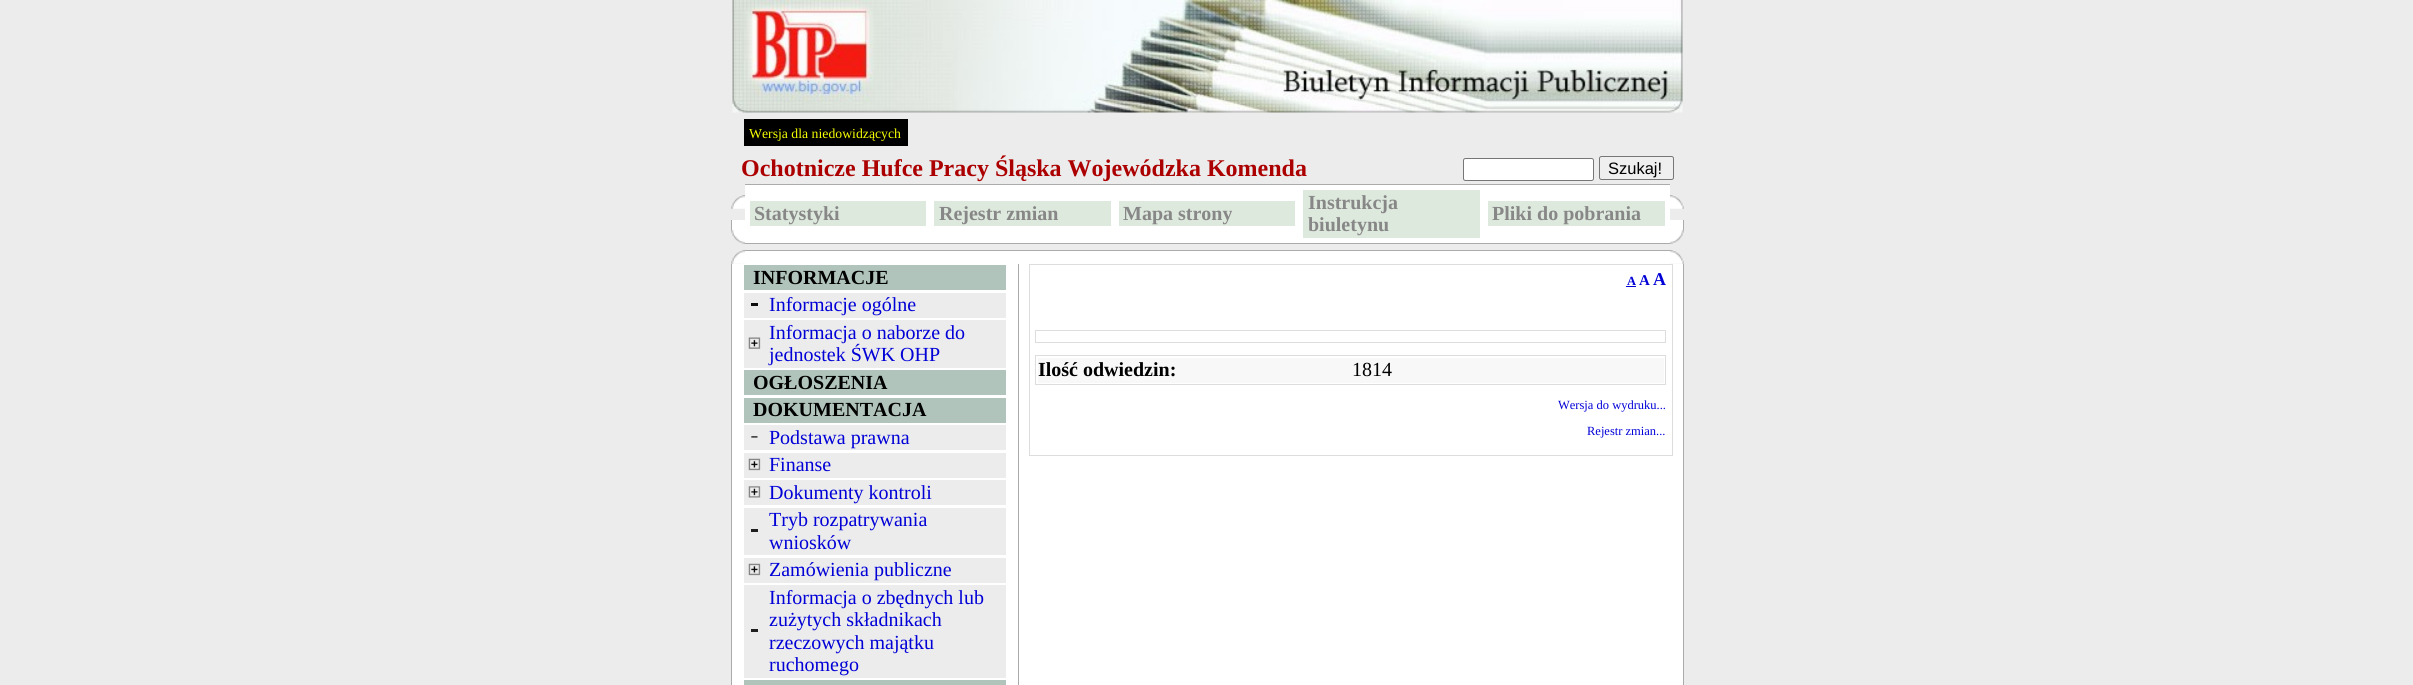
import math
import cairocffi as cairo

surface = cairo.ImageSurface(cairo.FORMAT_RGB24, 2413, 685)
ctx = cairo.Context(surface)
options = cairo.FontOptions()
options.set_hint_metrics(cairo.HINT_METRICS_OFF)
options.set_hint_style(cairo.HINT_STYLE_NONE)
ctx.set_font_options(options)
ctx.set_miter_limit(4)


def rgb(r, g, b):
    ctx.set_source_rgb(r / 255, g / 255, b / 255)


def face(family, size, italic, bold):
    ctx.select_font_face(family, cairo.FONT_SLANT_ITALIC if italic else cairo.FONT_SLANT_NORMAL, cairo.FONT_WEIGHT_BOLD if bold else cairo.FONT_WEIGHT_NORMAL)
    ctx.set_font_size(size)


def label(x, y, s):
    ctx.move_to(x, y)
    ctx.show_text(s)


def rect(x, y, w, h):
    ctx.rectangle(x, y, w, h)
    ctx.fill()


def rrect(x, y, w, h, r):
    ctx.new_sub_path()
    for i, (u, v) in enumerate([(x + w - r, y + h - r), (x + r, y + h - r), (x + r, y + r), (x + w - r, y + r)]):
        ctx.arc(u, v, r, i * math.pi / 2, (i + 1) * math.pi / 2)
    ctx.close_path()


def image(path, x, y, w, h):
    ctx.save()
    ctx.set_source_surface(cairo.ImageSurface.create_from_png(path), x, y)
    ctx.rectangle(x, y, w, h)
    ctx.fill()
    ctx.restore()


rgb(236, 236, 236)
ctx.paint()
image('image0.png', 732, 0, 951, 113)
rgb(0, 0, 0)
rect(744, 119, 164, 27)
face('Liberation Serif', 13.75, 0, 0)
rgb(246, 255, 0)
label(749, 138, 'Wersja dla niedowidzących')
face('Liberation Serif', 24, 0, 1)
rgb(172, 0, 0)
label(741, 176, 'Ochotnicze Hufce Pracy Śląska Wojewódzka Komenda')
rgb(255, 255, 255)
rrect(1463.5, 158.5, 130, 22, 2)
ctx.fill_preserve()
rgb(118, 118, 118)
ctx.set_line_width(1)
ctx.stroke()
rgb(239, 239, 239)
rrect(1599.5, 156.5, 74, 23, 2)
ctx.fill_preserve()
rgb(118, 118, 118)
ctx.stroke()
face('Liberation Sans', 16.5, 0, 0)
rgb(0, 0, 0)
label(1608, 174, 'Szukaj!')
image('image1.png', 731, 195, 14, 14)
rgb(255, 255, 255)
rect(745, 185, 925, 58)
rgb(171, 171, 171)
rect(745, 184, 925, 1)
rect(745, 243, 925, 1)
rgb(222, 233, 222)
rect(750, 201, 176, 25)
face('Liberation Serif', 20, 0, 1)
rgb(135, 135, 135)
label(754, 220, 'Statystyki')
rgb(222, 233, 222)
rect(934, 201, 177, 25)
rgb(135, 135, 135)
label(939, 220, 'Rejestr zmian')
rgb(222, 233, 222)
rect(1119, 201, 176, 25)
rgb(135, 135, 135)
label(1123, 220, 'Mapa strony')
rgb(222, 233, 222)
rect(1303, 190, 177, 48)
rgb(135, 135, 135)
label(1308, 209, 'Instrukcja')
label(1308, 231, 'biuletynu')
rgb(222, 233, 222)
rect(1488, 201, 177, 25)
rgb(135, 135, 135)
label(1492, 220, 'Pliki do pobrania')
image('image2.png', 1670, 195, 14, 14)
rgb(255, 255, 255)
rect(732, 220, 13, 10)
rgb(171, 171, 171)
rect(731, 220, 1, 10)
rgb(255, 255, 255)
rect(1670, 220, 13, 10)
rgb(171, 171, 171)
rect(1683, 220, 1, 10)
image('image3.png', 731, 230, 14, 14)
image('image4.png', 1670, 230, 14, 14)
image('image1.png', 731, 250, 14, 14)
rgb(255, 255, 255)
rect(745, 251, 925, 13)
rgb(171, 171, 171)
rect(745, 250, 925, 1)
image('image2.png', 1670, 250, 14, 14)
rgb(255, 255, 255)
rect(732, 264, 951, 421)
rgb(171, 171, 171)
rect(1683, 264, 1, 421)
rect(731, 264, 1, 421)
rgb(176, 196, 187)
rect(744, 265, 262, 25)
rgb(0, 0, 0)
label(753, 284, 'INFORMACJE')
rgb(236, 236, 236)
rect(744, 293, 262, 25)
rgb(14, 14, 14)
rect(751, 303, 7, 3)
face('Liberation Serif', 20, 0, 0)
rgb(0, 0, 215)
label(769, 311, 'Informacje ogólne')
rgb(236, 236, 236)
rect(744, 320, 262, 48)
image('image5.png', 748, 337, 13, 12)
rgb(0, 0, 215)
label(769, 339, 'Informacja o naborze do')
label(769, 361, 'jednostek ŚWK OHP')
rgb(176, 196, 187)
rect(744, 370, 262, 25)
face('Liberation Serif', 20, 0, 1)
rgb(0, 0, 0)
label(753, 389, 'OGŁOSZENIA')
rgb(176, 196, 187)
rect(744, 398, 262, 25)
rgb(0, 0, 0)
label(753, 416, 'DOKUMENTACJA')
rgb(236, 236, 236)
rect(744, 425, 262, 25)
image('image6.png', 751, 436, 7, 2)
face('Liberation Serif', 20, 0, 0)
rgb(0, 0, 215)
label(769, 444, 'Podstawa prawna')
rgb(236, 236, 236)
rect(744, 453, 262, 25)
image('image7.png', 748, 458, 13, 13)
rgb(0, 0, 215)
label(769, 471, 'Finanse')
rgb(236, 236, 236)
rect(744, 480, 262, 25)
image('image8.png', 748, 486, 13, 12)
rgb(0, 0, 215)
label(769, 499, 'Dokumenty kontroli')
rgb(236, 236, 236)
rect(744, 508, 262, 47)
rgb(31, 31, 31)
rect(751, 529, 7, 3)
rgb(0, 0, 215)
label(769, 526, 'Tryb rozpatrywania')
label(769, 549, 'wniosków')
rgb(236, 236, 236)
rect(744, 558, 262, 25)
image('image7.png', 748, 563, 13, 13)
rgb(0, 0, 215)
label(769, 576, 'Zamówienia publiczne')
rgb(236, 236, 236)
rect(744, 585, 262, 93)
rgb(31, 31, 31)
rect(751, 629, 7, 3)
rgb(0, 0, 215)
label(769, 604, 'Informacja o zbędnych lub')
label(769, 626, 'zużytych składnikach')
label(769, 649, 'rzeczowych majątku')
label(769, 671, 'ruchomego')
rgb(176, 196, 187)
rect(744, 680, 262, 5)
rgb(171, 171, 171)
rect(1018, 264, 1, 421)
ctx.rectangle(1029.5, 264.5, 643, 191)
rgb(221, 221, 221)
ctx.stroke()
face('Liberation Serif', 12.5, 0, 1)
rgb(0, 0, 215)
label(1627, 285, 'A')
rect(1626, 286, 10, 1)
face('Liberation Serif', 15, 0, 1)
label(1639, 285, 'A')
face('Liberation Serif', 18, 0, 1)
label(1653, 285, 'A')
ctx.rectangle(1035.5, 330.5, 630, 12)
rgb(221, 221, 221)
ctx.stroke()
ctx.rectangle(1035.5, 355.5, 630, 29)
ctx.stroke()
rgb(248, 248, 248)
rect(1038, 358, 626, 25)
face('Liberation Serif', 20, 0, 1)
rgb(0, 0, 0)
label(1038, 376, 'Ilość odwiedzin:')
face('Liberation Serif', 20, 0, 0)
label(1352, 376, '1814')
face('Liberation Serif', 12.5, 0, 0)
rgb(0, 0, 215)
label(1558, 409, 'Wersja do wydruku...')
label(1587, 435, 'Rejestr zmian...')
surface.write_to_png('render.png')
